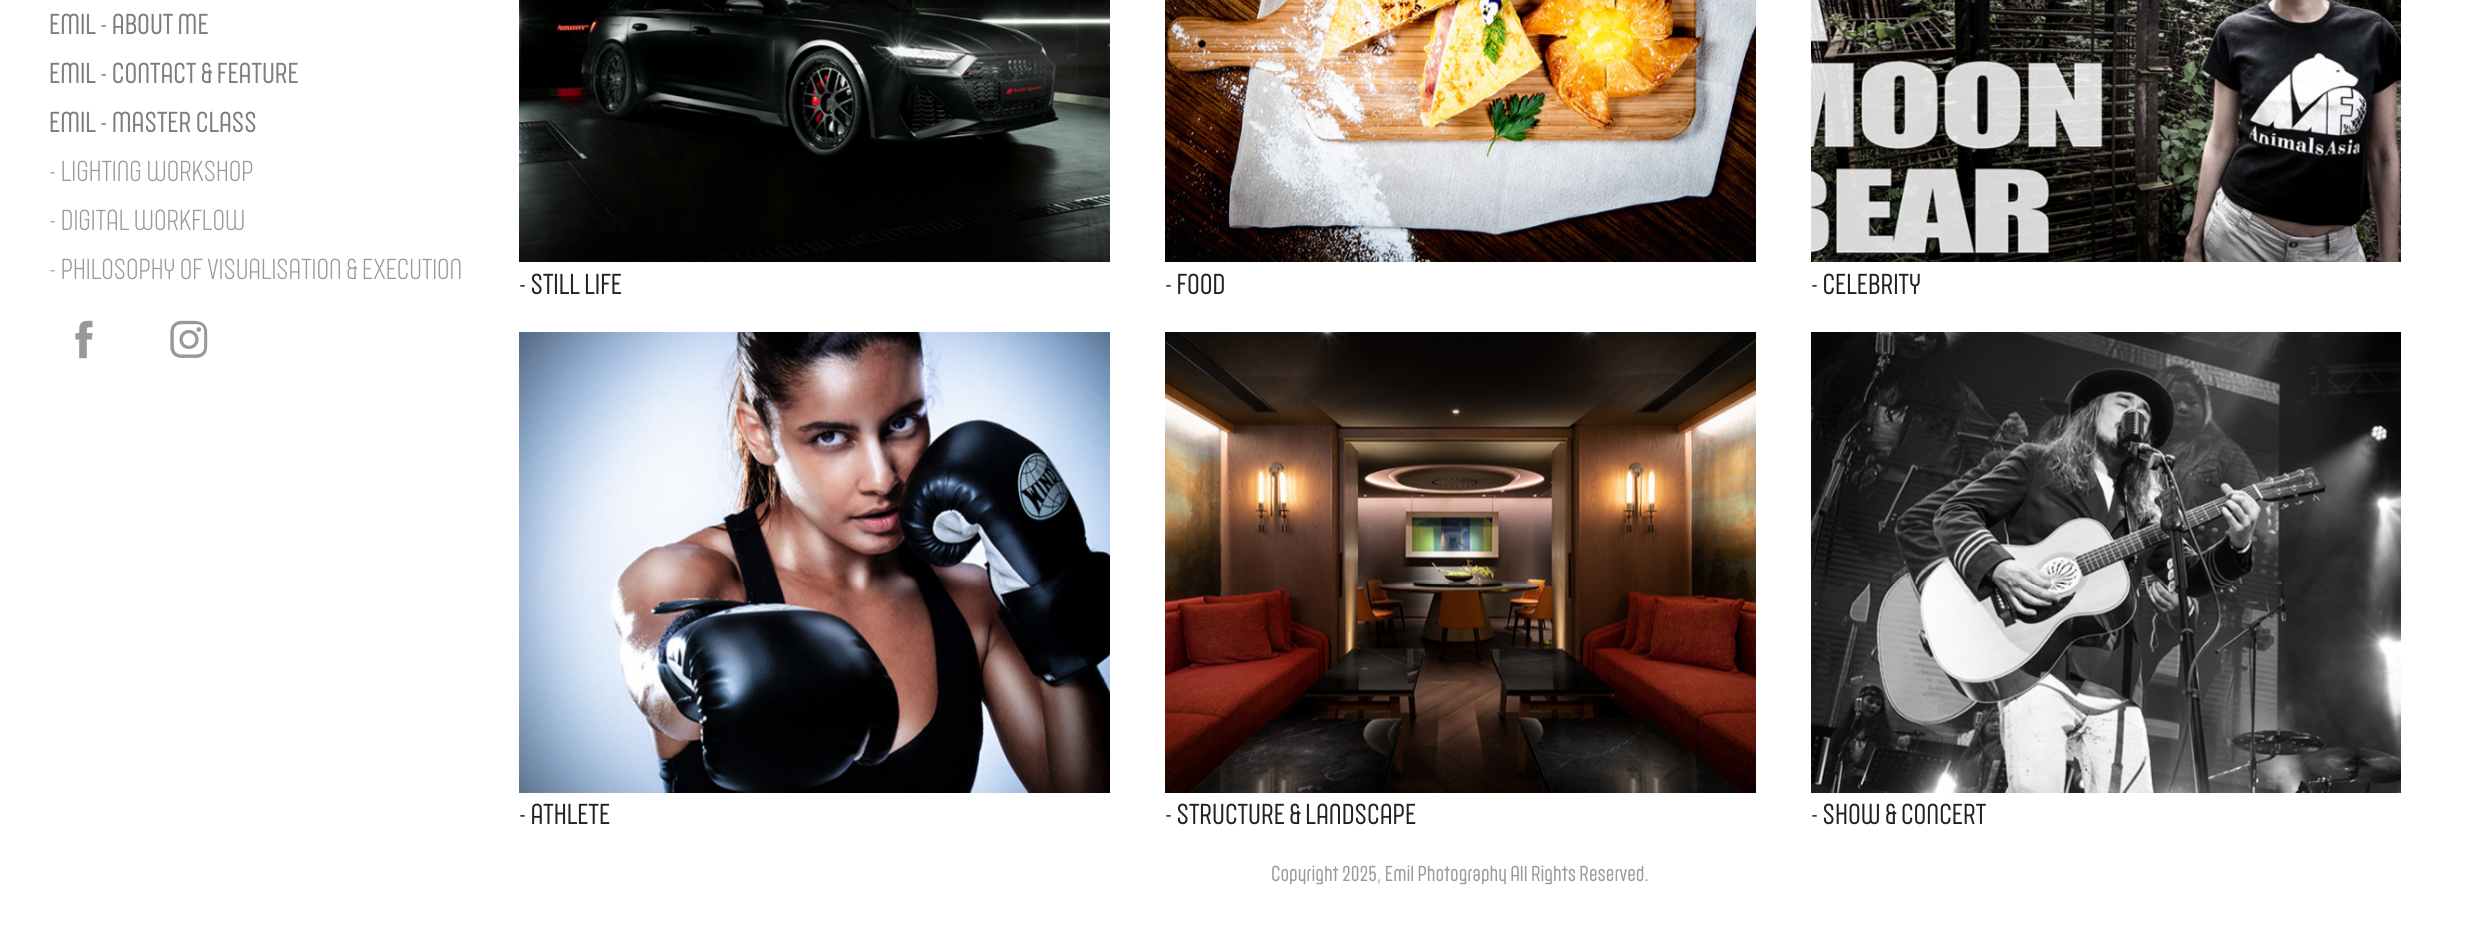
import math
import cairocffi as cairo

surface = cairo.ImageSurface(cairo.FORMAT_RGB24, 2491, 936)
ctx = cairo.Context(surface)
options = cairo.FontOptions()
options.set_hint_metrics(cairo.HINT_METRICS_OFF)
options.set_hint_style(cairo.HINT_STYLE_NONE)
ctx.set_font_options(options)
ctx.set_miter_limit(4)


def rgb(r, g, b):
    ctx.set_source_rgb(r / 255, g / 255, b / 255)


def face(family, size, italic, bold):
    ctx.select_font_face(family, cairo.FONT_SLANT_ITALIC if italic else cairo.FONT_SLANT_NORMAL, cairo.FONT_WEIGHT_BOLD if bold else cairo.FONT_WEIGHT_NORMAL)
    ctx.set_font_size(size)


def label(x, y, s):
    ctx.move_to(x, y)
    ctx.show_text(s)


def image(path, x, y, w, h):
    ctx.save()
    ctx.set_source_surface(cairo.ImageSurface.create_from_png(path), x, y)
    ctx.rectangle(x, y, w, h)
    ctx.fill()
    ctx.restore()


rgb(255, 255, 255)
ctx.paint()
face('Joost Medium', 28, 0, 0)
rgb(125, 125, 125)
label(49, 34, 'EMIL - ABOUT ME')
label(49, 83, 'EMIL - CONTACT & FEATURE')
label(49, 132, 'EMIL - MASTER CLASS')
face('Joost', 28, 0, 0)
rgb(153, 153, 153)
label(49, 181, '- LIGHTING WORKSHOP')
label(49, 230, '- DIGITAL WORKFLOW')
label(49, 279, '- PHILOSOPHY OF VISUALISATION & EXECUTION')
image('image0.png', 75, 320, 18, 39)
image('image1.png', 170, 320, 38, 38)
image('image2.png', 519, 0, 591, 262)
face('Joost Medium', 28, 0, 0)
rgb(34, 34, 34)
label(519, 294, '- STILL LIFE')
image('image3.png', 1165, 0, 591, 262)
label(1165, 294, '- FOOD')
image('image4.png', 1811, 0, 590, 262)
label(1811, 294, '- CELEBRITY')
image('image5.png', 519, 332, 591, 461)
label(519, 824, '- ATHLETE')
image('image6.png', 1165, 332, 591, 461)
label(1165, 824, '- STRUCTURE & LANDSCAPE')
image('image7.png', 1811, 332, 590, 461)
label(1811, 824, '- SHOW & CONCERT')
face('Joost Medium', 21, 0, 0)
rgb(153, 153, 153)
label(1271, 881, 'Copyright 2025, Emil Photography All Rights Reserved.')
surface.write_to_png('render.png')
